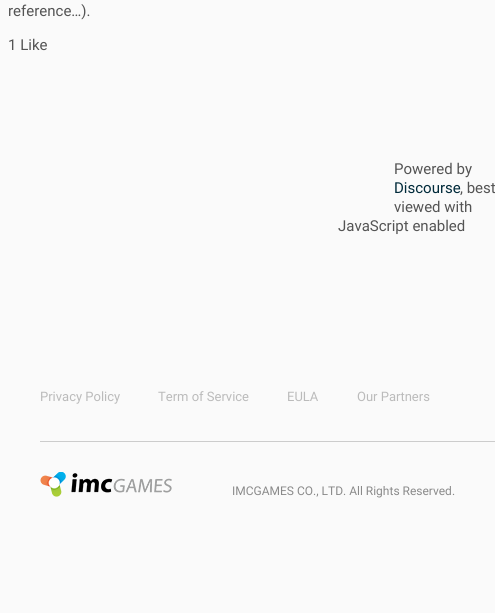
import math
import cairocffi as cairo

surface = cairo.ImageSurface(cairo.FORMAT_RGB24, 495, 613)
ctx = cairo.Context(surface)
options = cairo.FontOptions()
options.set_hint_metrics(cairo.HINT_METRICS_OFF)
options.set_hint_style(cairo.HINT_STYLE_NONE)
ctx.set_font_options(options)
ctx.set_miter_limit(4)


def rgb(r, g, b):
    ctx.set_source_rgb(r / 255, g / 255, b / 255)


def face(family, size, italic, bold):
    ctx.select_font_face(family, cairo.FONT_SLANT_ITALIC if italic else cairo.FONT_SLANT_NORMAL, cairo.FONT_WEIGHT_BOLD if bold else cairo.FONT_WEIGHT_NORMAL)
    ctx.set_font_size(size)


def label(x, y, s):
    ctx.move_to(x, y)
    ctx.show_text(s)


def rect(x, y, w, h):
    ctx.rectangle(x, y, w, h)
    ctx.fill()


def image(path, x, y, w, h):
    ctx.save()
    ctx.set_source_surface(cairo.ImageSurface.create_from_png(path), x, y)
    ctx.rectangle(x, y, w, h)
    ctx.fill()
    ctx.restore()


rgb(250, 250, 250)
ctx.paint()
face('Roboto', 15, 0, 0)
rgb(84, 84, 84)
label(8, 16, 'reference…).')
label(8, 50, '1 Like')
label(394, 174, 'Powered by')
rgb(0, 42, 58)
label(394, 193, 'Discourse')
rgb(84, 84, 84)
label(460, 193, ', best')
label(394, 212, 'viewed with')
label(338, 231, 'JavaScript enabled')
face('Roboto', 13, 0, 0)
rgb(187, 187, 187)
label(40, 401, 'Privacy Policy')
label(158, 401, 'Term of Service')
label(287, 401, 'EULA')
label(357, 401, 'Our Partners')
rgb(204, 204, 204)
rect(40, 441, 455, 1)
image('image0.png', 40, 472, 132, 25)
face('Roboto', 12, 0, 0)
rgb(138, 138, 138)
label(232, 495, 'IMCGAMES CO., LTD. All Rights Reserved.')
surface.write_to_png('render.png')
